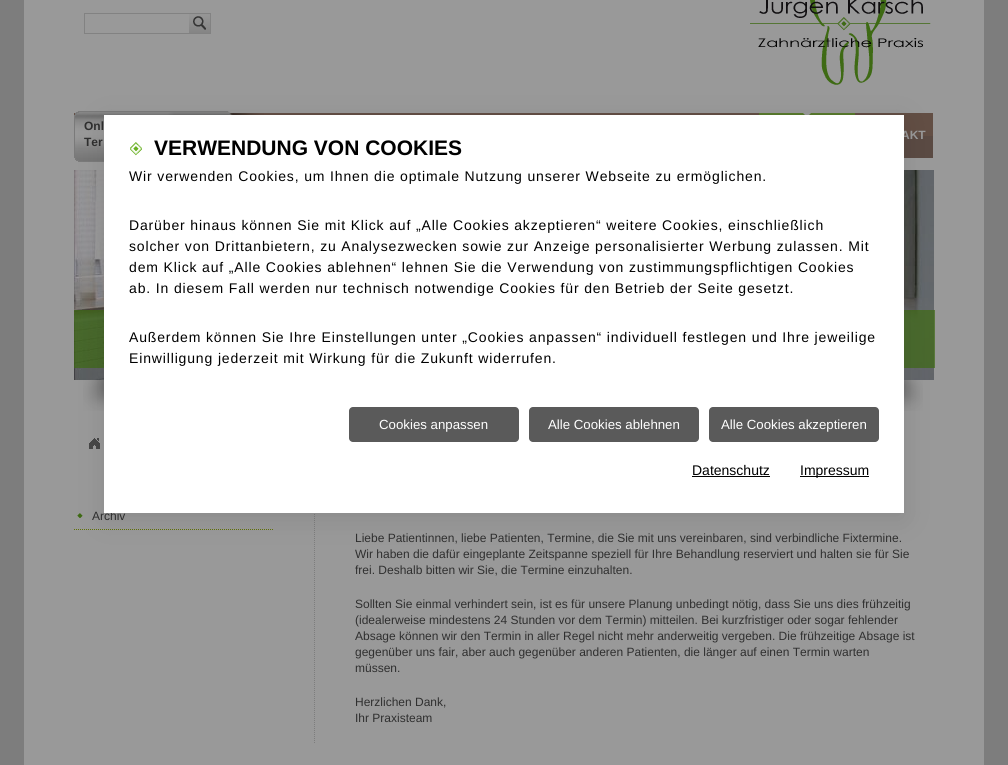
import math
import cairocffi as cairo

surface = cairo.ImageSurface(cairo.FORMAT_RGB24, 1008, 765)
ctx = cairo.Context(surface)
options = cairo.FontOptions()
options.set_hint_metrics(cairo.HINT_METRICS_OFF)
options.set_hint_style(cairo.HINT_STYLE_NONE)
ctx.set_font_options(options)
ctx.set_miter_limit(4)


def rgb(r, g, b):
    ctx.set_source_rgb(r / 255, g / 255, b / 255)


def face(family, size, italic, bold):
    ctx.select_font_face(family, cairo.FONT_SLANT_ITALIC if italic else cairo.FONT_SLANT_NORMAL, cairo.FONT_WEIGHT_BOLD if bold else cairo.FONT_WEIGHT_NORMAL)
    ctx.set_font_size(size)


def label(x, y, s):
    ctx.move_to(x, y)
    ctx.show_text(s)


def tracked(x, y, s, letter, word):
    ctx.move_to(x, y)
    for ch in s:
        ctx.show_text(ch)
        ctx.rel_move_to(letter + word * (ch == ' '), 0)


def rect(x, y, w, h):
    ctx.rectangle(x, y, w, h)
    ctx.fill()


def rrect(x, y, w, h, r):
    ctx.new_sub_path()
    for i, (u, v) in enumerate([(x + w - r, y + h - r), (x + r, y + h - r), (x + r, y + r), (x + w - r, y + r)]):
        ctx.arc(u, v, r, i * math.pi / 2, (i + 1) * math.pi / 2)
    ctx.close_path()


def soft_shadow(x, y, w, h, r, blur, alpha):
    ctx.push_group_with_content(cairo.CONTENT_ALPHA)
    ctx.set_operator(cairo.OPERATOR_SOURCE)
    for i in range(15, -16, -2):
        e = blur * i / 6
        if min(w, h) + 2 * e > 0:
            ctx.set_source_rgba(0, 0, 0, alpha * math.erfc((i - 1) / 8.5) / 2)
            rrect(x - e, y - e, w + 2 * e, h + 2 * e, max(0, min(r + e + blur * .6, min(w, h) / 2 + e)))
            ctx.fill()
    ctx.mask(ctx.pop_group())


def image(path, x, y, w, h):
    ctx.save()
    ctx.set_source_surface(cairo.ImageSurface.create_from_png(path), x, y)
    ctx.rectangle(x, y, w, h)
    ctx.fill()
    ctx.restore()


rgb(125, 125, 125)
ctx.paint()
rgb(153, 153, 153)
rect(24, 0, 960, 765)
rgb(130, 130, 130)
rect(84, 13, 105, 1)
rect(84, 33, 105, 1)
rect(84, 13, 1, 21)
image('image0.png', 189, 13, 22, 21)
image('image1.png', 750, 0, 181, 85)
image('image2.png', 74, 113, 859, 45)
image('image3.png', 74, 111, 190, 51)
face('Liberation Sans', 12, 0, 1)
rgb(47, 47, 47)
label(84, 130, 'Onl')
label(84, 146, 'Ter')
image('image4.png', 759, 113, 96, 2)
rgb(153, 153, 153)
label(901, 139, 'AKT')
image('image5.png', 74, 170, 860, 210)
ctx.set_source_rgba(0.243, 0.416, 0.078, 0.7)
rect(74, 310, 861, 58)
image('image6.png', 83, 380, 840, 31)
image('image7.png', 89, 438, 11, 11)
image('image8.png', 77, 513, 6, 5)
ctx.new_path()
ctx.move_to(74, 529.5)
ctx.line_to(274, 529.5)
rgb(97, 114, 7)
ctx.set_line_width(1)
ctx.set_dash([1, 1])
ctx.stroke()
face('Liberation Sans', 12, 0, 0)
rgb(47, 47, 47)
label(92, 520, 'Archiv')
ctx.new_path()
ctx.move_to(314.5, 480)
ctx.line_to(314.5, 744)
rgb(125, 125, 125)
ctx.stroke()
rgb(47, 47, 47)
label(355, 542, 'Liebe Patientinnen, liebe Patienten, Termine, die Sie mit uns vereinbaren, sind verbindliche Fixtermine.')
label(355, 558, 'Wir haben die dafür eingeplante Zeitspanne speziell für Ihre Behandlung reserviert und halten sie für Sie')
label(355, 574, 'frei. Deshalb bitten wir Sie, die Termine einzuhalten.')
label(355, 608, 'Sollten Sie einmal verhindert sein, ist es für unsere Planung unbedingt nötig, dass Sie uns dies frühzeitig')
label(355, 624, '(idealerweise mindestens 24 Stunden vor dem Termin) mitteilen. Bei kurzfristiger oder sogar fehlender')
label(355, 640, 'Absage können wir den Termin in aller Regel nicht mehr anderweitig vergeben. Die frühzeitige Absage ist')
label(355, 656, 'gegenüber uns fair, aber auch gegenüber anderen Patienten, die länger auf einen Termin warten')
label(355, 672, 'müssen.')
label(355, 706, 'Herzlichen Dank,')
label(355, 722, 'Ihr Praxisteam')
rgb(0, 0, 0)
soft_shadow(104, 121, 800, 398, 0, 14, 0.1)
rgb(255, 255, 255)
rect(104, 115, 800, 398)
image('image9.png', 130, 142, 12, 14)
face('Liberation Sans', 21, 0, 1)
rgb(0, 0, 0)
label(154, 155, 'VERWENDUNG VON COOKIES')
face('Liberation Sans', 14, 0, 0)
tracked(129, 181, 'Wir verwenden Cookies, um Ihnen die optimale Nutzung unserer Webseite zu ermöglichen.', 0.85, 0)
tracked(129, 230, 'Darüber hinaus können Sie mit Klick auf „Alle Cookies akzeptieren“ weitere Cookies, einschließlich', 0.85, 0)
tracked(129, 251, 'solcher von Drittanbietern, zu Analysezwecken sowie zur Anzeige personalisierter Werbung zulassen. Mit', 0.85, 0)
tracked(129, 272, 'dem Klick auf „Alle Cookies ablehnen“ lehnen Sie die Verwendung von zustimmungspflichtigen Cookies', 0.85, 0)
tracked(129, 293, 'ab. In diesem Fall werden nur technisch notwendige Cookies für den Betrieb der Seite gesetzt.', 0.85, 0)
tracked(129, 342, 'Außerdem können Sie Ihre Einstellungen unter „Cookies anpassen“ individuell festlegen und Ihre jeweilige', 0.85, 0)
tracked(129, 363, 'Einwilligung jederzeit mit Wirkung für die Zukunft widerrufen.', 0.85, 0)
rgb(90, 90, 90)
rrect(349, 407, 170, 35, 4)
ctx.fill()
face('Liberation Sans', 13.25, 0, 0)
rgb(255, 255, 255)
label(379, 429, 'Cookies anpassen')
rgb(90, 90, 90)
rrect(529, 407, 170, 35, 4)
ctx.fill()
rgb(255, 255, 255)
label(548, 429, 'Alle Cookies ablehnen')
rgb(90, 90, 90)
rrect(709, 407, 170, 35, 4)
ctx.fill()
rgb(255, 255, 255)
label(721, 429, 'Alle Cookies akzeptieren')
face('Liberation Sans', 14, 0, 0)
rgb(0, 0, 0)
label(692, 475, 'Datenschutz')
rect(692, 476, 78, 1)
rect(800, 476, 69, 1)
label(800, 475, 'Impressum')
surface.write_to_png('render.png')
